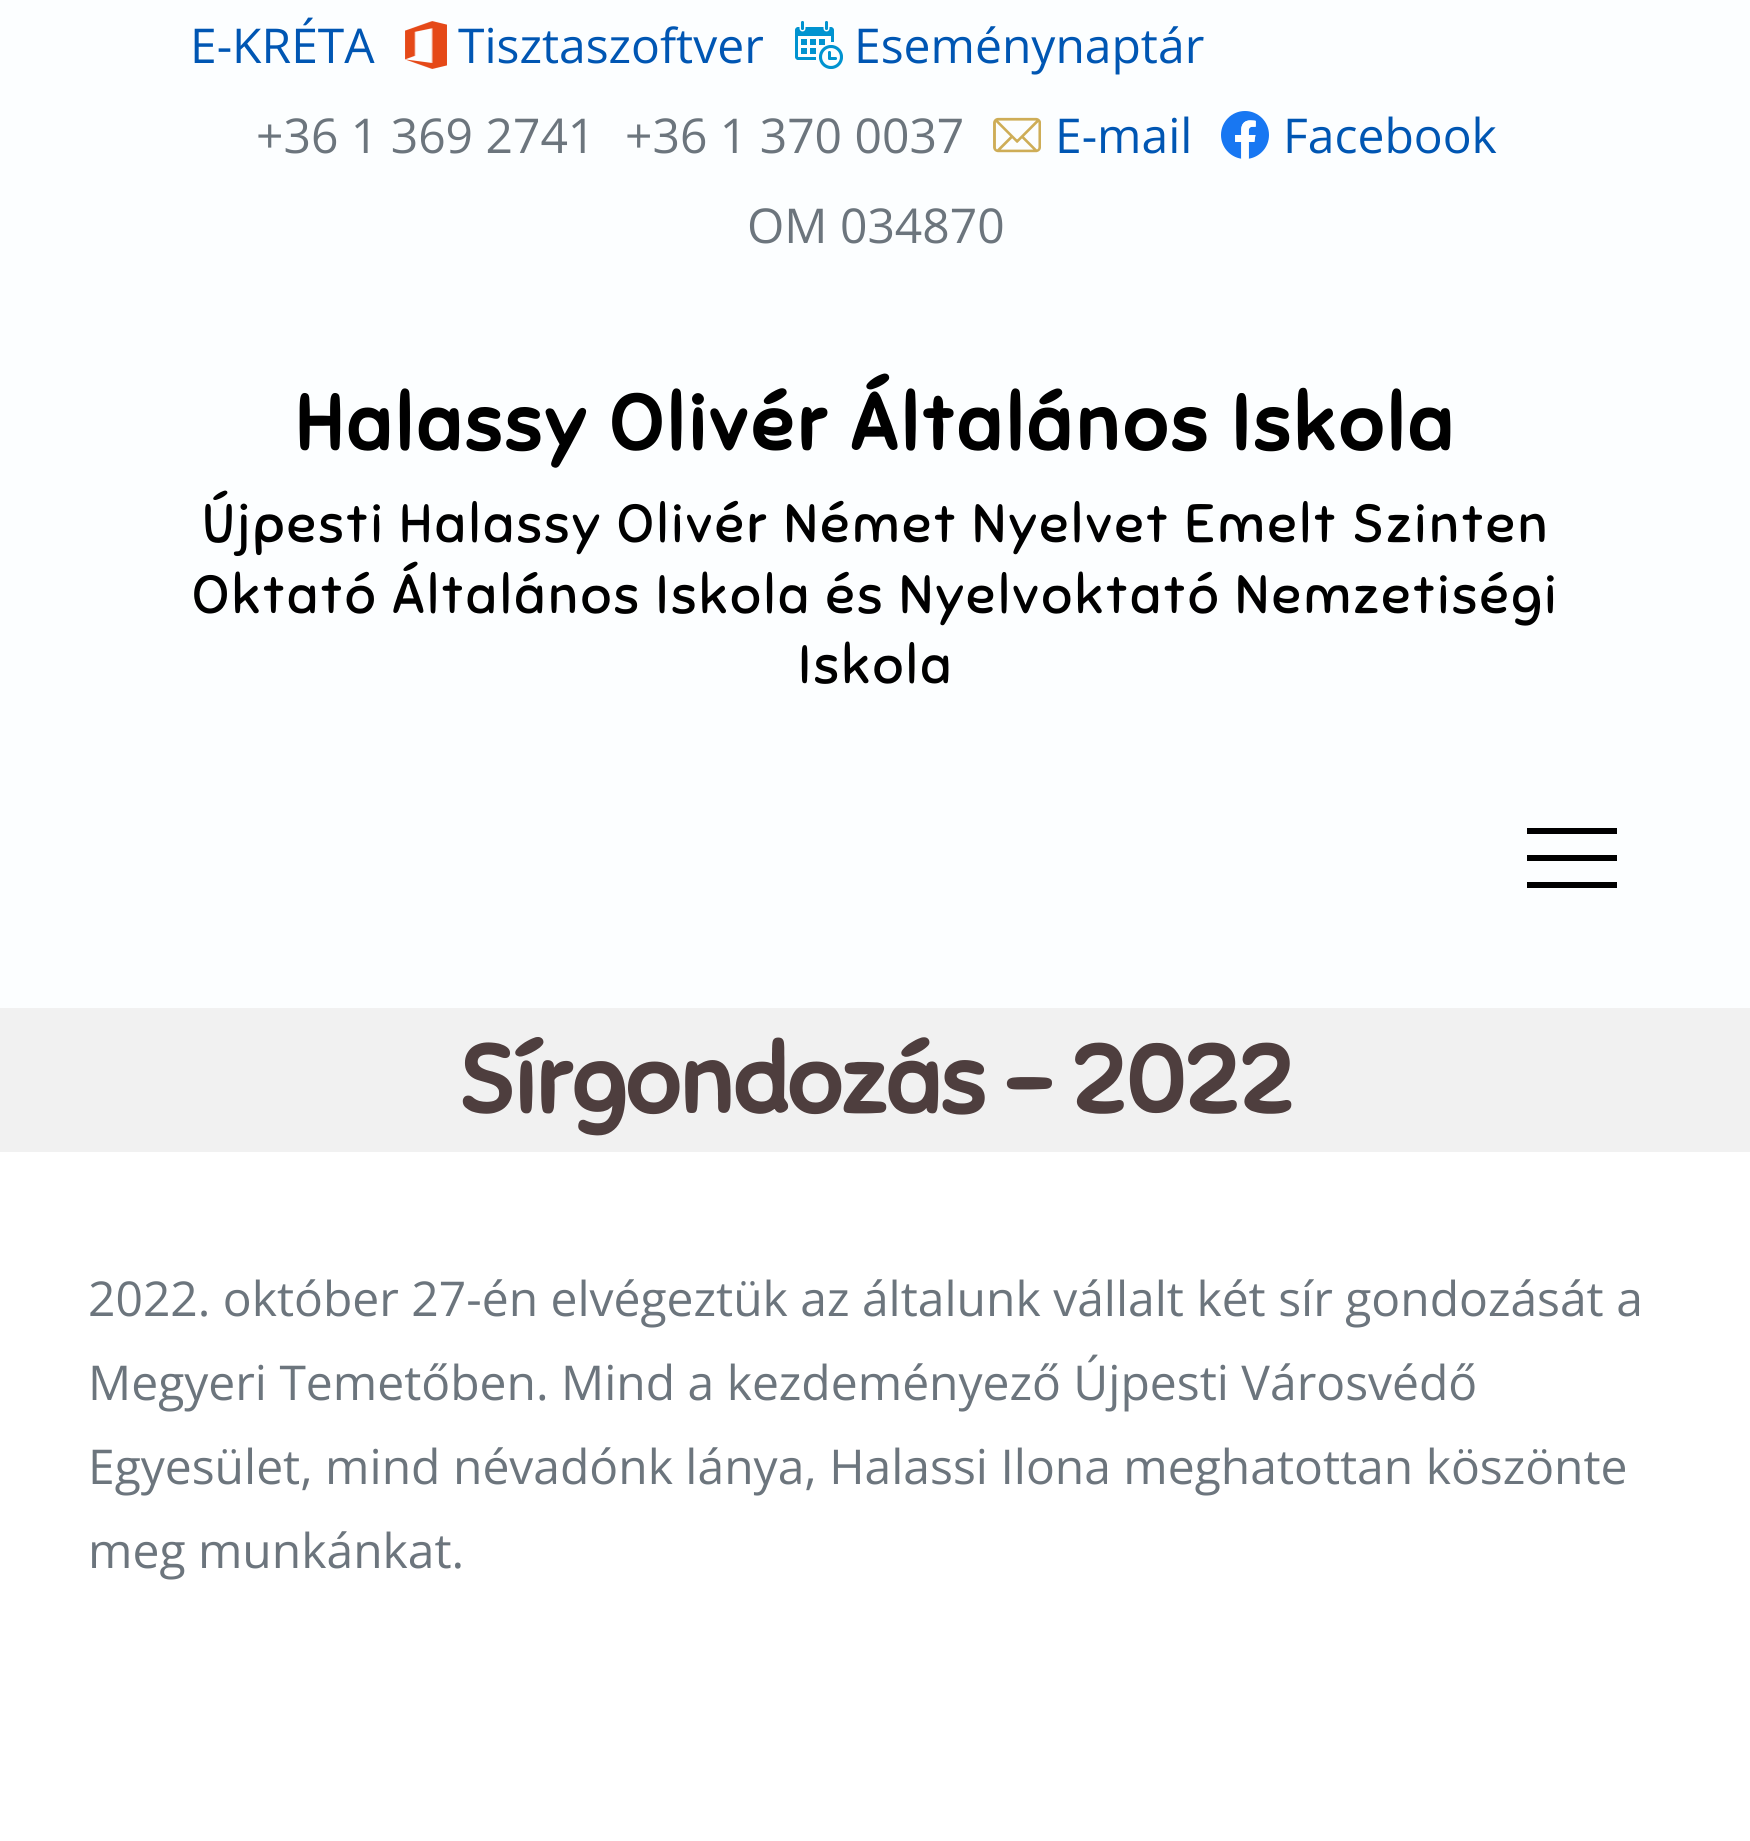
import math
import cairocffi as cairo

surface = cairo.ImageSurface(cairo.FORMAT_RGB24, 1750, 1841)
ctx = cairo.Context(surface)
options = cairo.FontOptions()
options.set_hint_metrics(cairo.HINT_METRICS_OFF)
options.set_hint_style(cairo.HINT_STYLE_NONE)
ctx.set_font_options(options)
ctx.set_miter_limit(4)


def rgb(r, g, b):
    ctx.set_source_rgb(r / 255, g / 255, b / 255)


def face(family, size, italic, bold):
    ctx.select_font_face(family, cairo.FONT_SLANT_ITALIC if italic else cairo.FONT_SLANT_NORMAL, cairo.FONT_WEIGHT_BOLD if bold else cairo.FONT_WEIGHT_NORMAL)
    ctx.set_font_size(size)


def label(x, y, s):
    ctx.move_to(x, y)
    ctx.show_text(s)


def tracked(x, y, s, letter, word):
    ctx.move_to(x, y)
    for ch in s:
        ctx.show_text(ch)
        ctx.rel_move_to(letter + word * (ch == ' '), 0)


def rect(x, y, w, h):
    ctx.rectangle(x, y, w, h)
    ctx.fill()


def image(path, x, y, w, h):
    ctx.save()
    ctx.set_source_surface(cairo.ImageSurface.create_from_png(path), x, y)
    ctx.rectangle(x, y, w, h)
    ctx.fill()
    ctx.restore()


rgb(255, 255, 255)
ctx.paint()
rgb(252, 254, 255)
rect(0, 0, 1750, 1008)
face('Open Sans', 48, 0, 0)
rgb(0, 86, 179)
label(190, 63, 'E-KRÉTA')
image('image0.png', 405, 21, 42, 48)
label(458, 63, 'Tisztaszoftver')
image('image1.png', 795, 21, 48, 48)
label(854, 63, 'Eseménynaptár')
rgb(108, 117, 125)
label(256, 153, '+36 1 369 2741')
label(625, 153, '+36 1 370 0037')
image('image2.png', 993, 117, 48, 36)
rgb(0, 86, 179)
label(1055, 153, 'E-mail')
image('image3.png', 1221, 111, 48, 48)
label(1283, 153, 'Facebook')
rgb(108, 117, 125)
label(747, 243, 'OM 034870')
face('Sniglet', 78, 0, 1)
rgb(0, 0, 0)
tracked(295, 450, 'Halassy Olivér Általános Iskola', 3.9, 0)
face('Sniglet', 54, 0, 0)
tracked(202, 542, 'Újpesti Halassy Olivér Német Nyelvet Emelt Szinten', 2.7, 0)
tracked(192, 613, 'Oktató Általános Iskola és Nyelvoktató Nemzetiségi', 2.7, 0)
tracked(798, 683, 'Iskola', 2.7, 0)
rect(1527, 828, 90, 6)
rect(1527, 855, 90, 6)
rect(1527, 882, 90, 6)
rgb(241, 241, 241)
rect(0, 1008, 1750, 144)
face('Sniglet', 96, 0, 1)
rgb(78, 62, 62)
label(458, 1113, 'Sírgondozás – 2022')
face('Open Sans', 48, 0, 0)
rgb(108, 117, 125)
label(88, 1316, '2022. október 27-én elvégeztük az általunk vállalt két sír gondozását a')
label(88, 1400, 'Megyeri Temetőben. Mind a kezdeményező Újpesti Városvédő')
label(88, 1484, 'Egyesület, mind névadónk lánya, Halassi Ilona meghatottan köszönte')
label(88, 1568, 'meg munkánkat.')
surface.write_to_png('render.png')
